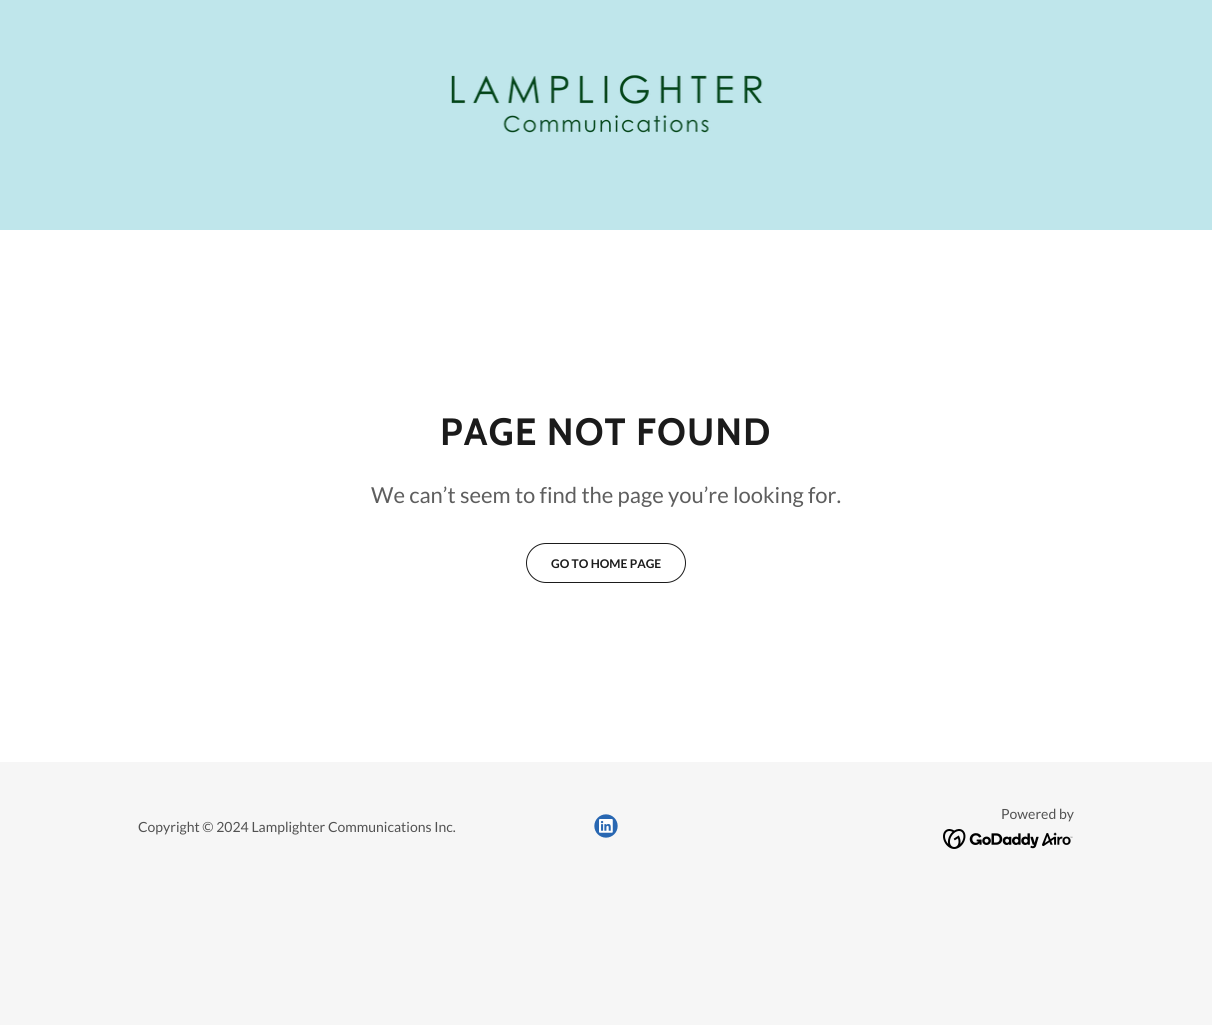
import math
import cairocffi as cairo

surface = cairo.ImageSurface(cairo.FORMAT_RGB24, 1212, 1025)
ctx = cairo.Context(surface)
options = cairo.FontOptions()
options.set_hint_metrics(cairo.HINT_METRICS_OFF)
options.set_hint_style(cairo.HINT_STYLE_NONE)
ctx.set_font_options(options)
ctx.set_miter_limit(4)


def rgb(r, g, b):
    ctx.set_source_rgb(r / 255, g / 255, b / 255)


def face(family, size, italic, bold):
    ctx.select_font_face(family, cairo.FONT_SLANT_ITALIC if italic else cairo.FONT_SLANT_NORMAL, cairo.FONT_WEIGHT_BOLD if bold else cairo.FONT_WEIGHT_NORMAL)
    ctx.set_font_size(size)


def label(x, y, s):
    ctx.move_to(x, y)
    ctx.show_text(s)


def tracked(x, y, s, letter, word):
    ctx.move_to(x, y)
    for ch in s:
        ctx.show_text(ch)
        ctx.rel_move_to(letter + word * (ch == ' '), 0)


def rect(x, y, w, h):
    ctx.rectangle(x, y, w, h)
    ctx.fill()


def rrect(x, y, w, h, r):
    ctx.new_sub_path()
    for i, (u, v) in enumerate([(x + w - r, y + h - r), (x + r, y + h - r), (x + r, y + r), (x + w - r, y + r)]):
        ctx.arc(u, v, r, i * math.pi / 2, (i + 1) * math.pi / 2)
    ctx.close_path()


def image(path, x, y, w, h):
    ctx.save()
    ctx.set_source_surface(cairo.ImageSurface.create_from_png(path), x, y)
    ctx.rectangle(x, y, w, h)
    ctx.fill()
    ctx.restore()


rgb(246, 246, 246)
ctx.paint()
rgb(191, 230, 235)
rect(0, 0, 1212, 230)
image('image0.png', 451, 75, 312, 58)
rgb(255, 255, 255)
rect(0, 230, 1212, 532)
face('Cabin', 38, 0, 1)
rgb(27, 27, 27)
tracked(440, 445, 'PAGE NOT FOUND', 1, 0)
face('Lato', 22, 0, 0)
rgb(94, 94, 94)
label(371, 503, 'We can’t seem to find the page you’re looking for.')
rrect(526.5, 543.5, 159, 39, 19.5)
rgb(27, 27, 27)
ctx.set_line_width(1)
ctx.stroke()
face('Lato', 12, 0, 1)
label(551, 568, 'GO TO HOME PAGE')
face('Lato', 14, 0, 0)
rgb(82, 82, 82)
label(138, 832, 'Copyright © 2024 Lamplighter Communications Inc.')
image('image1.png', 594, 814, 24, 24)
label(1001, 819, 'Powered by')
image('image2.png', 943, 829, 130, 20)
surface.write_to_png('render.png')
